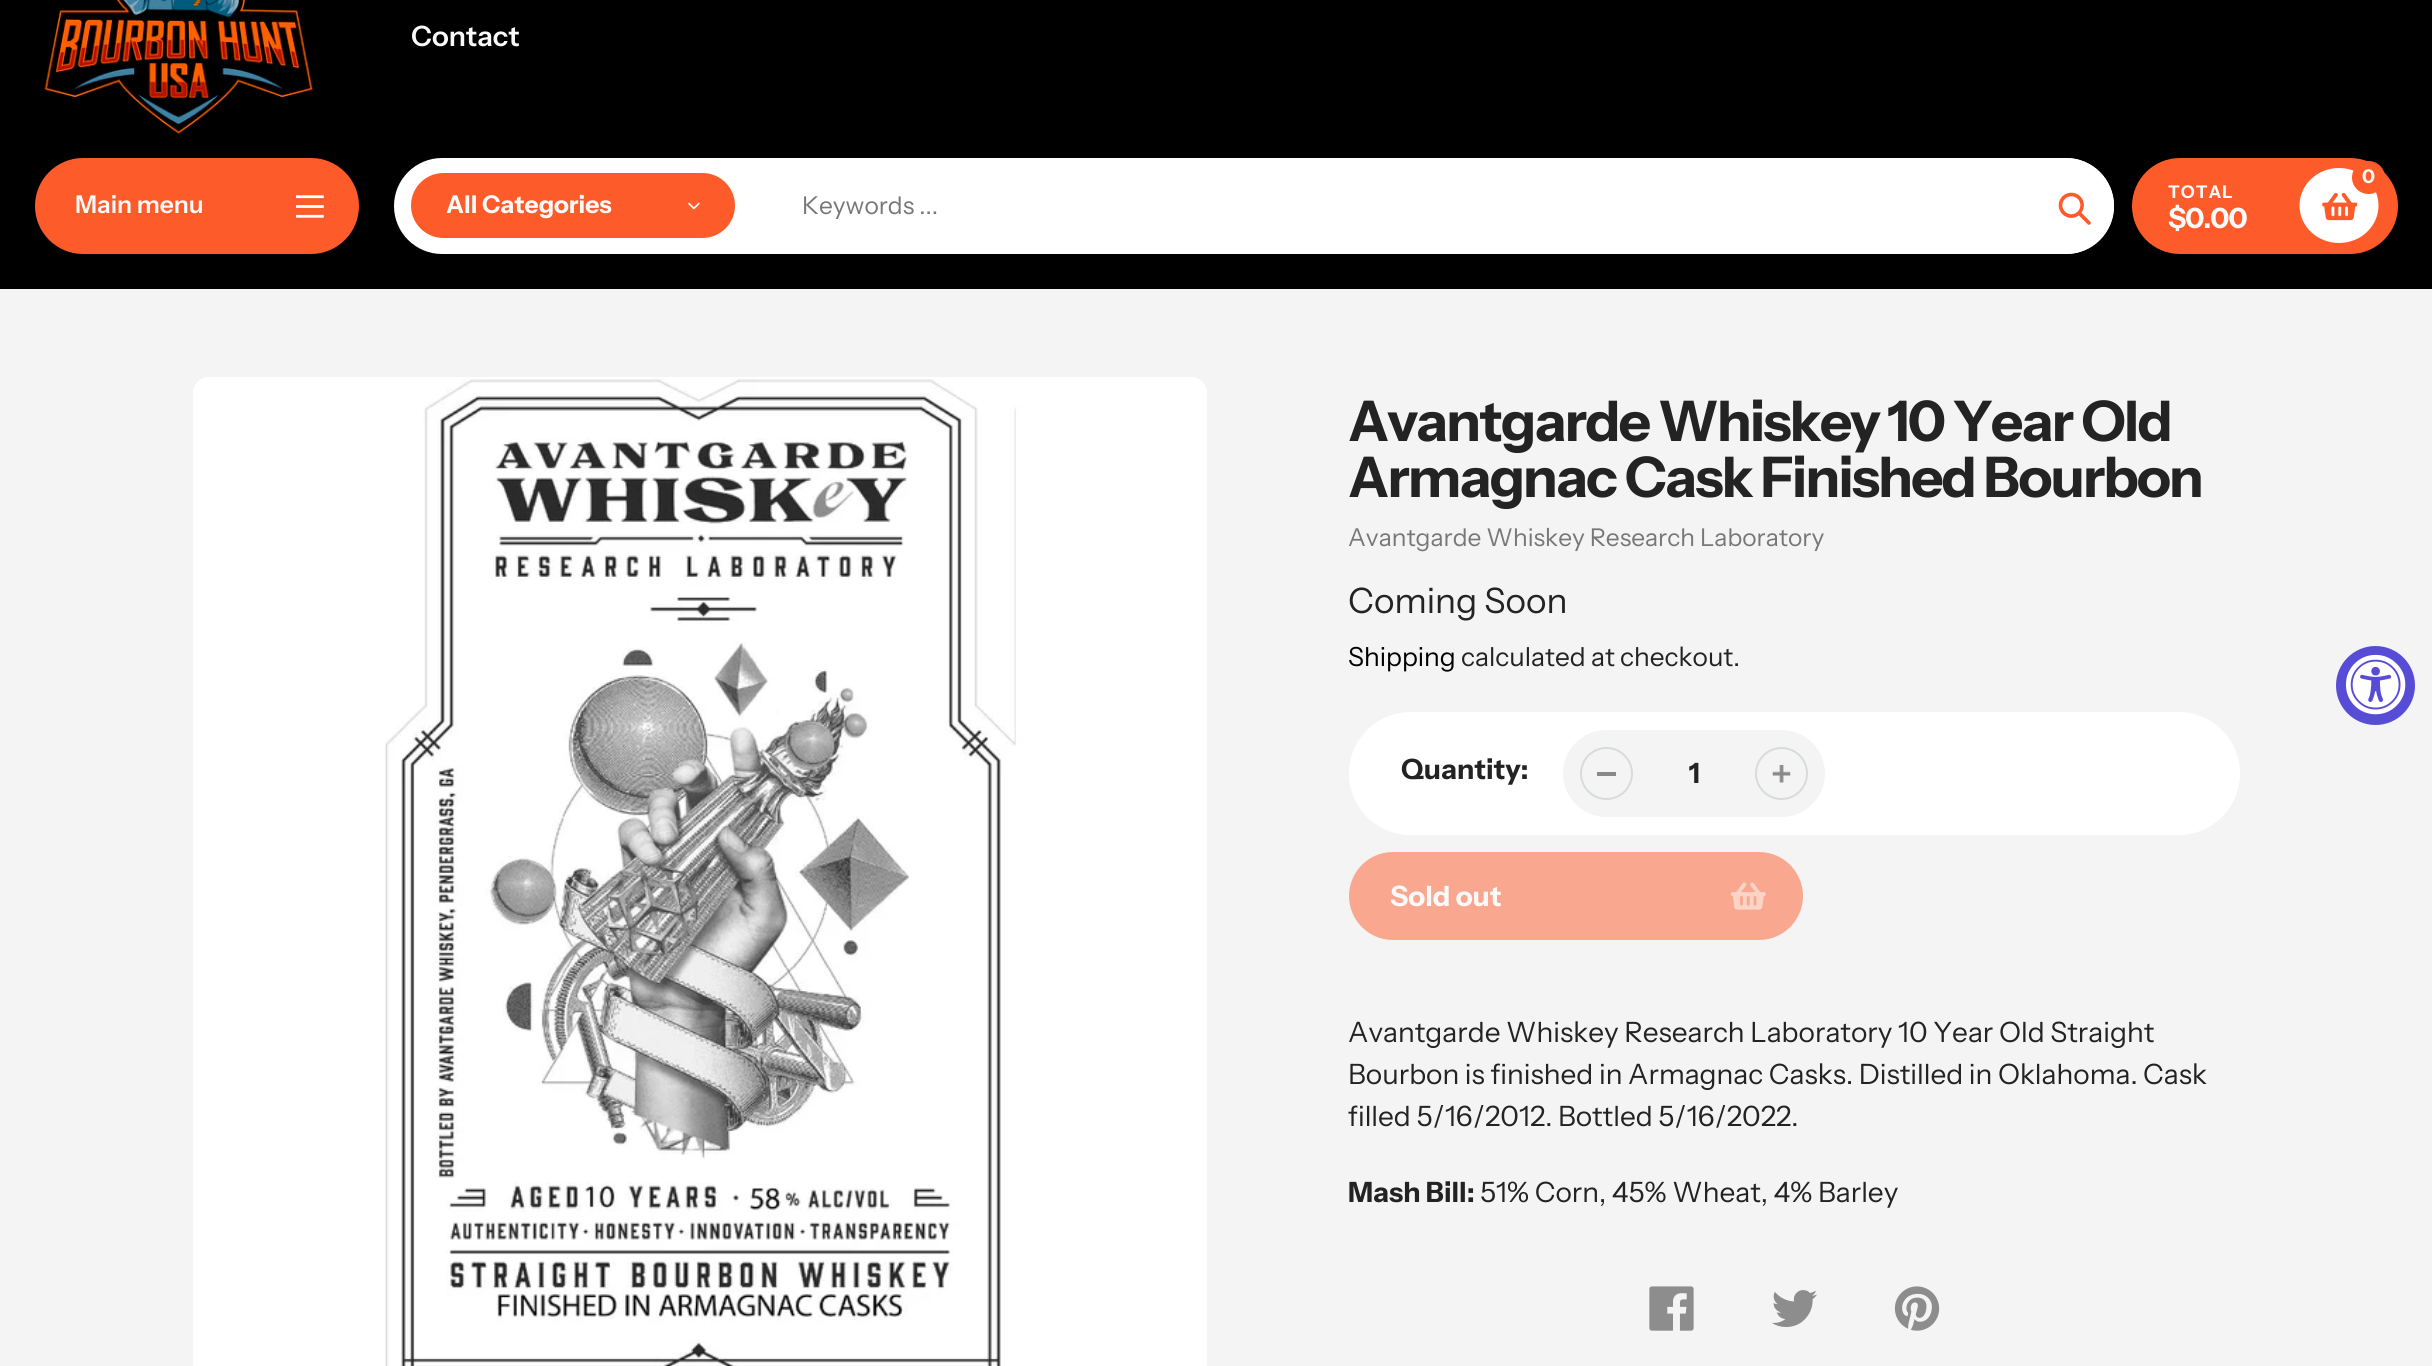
import math
import cairocffi as cairo

surface = cairo.ImageSurface(cairo.FORMAT_RGB24, 2432, 1366)
ctx = cairo.Context(surface)
options = cairo.FontOptions()
options.set_hint_metrics(cairo.HINT_METRICS_OFF)
options.set_hint_style(cairo.HINT_STYLE_NONE)
ctx.set_font_options(options)
ctx.set_miter_limit(4)


def rgb(r, g, b):
    ctx.set_source_rgb(r / 255, g / 255, b / 255)


def face(family, size, italic, bold):
    ctx.select_font_face(family, cairo.FONT_SLANT_ITALIC if italic else cairo.FONT_SLANT_NORMAL, cairo.FONT_WEIGHT_BOLD if bold else cairo.FONT_WEIGHT_NORMAL)
    ctx.set_font_size(size)


def label(x, y, s):
    ctx.move_to(x, y)
    ctx.show_text(s)


def tracked(x, y, s, letter, word):
    ctx.move_to(x, y)
    for ch in s:
        ctx.show_text(ch)
        ctx.rel_move_to(letter + word * (ch == ' '), 0)


def rect(x, y, w, h):
    ctx.rectangle(x, y, w, h)
    ctx.fill()


def rrect(x, y, w, h, r):
    ctx.new_sub_path()
    for i, (u, v) in enumerate([(x + w - r, y + h - r), (x + r, y + h - r), (x + r, y + r), (x + w - r, y + r)]):
        ctx.arc(u, v, r, i * math.pi / 2, (i + 1) * math.pi / 2)
    ctx.close_path()


def image(path, x, y, w, h):
    ctx.save()
    ctx.set_source_surface(cairo.ImageSurface.create_from_png(path), x, y)
    ctx.rectangle(x, y, w, h)
    ctx.fill()
    ctx.restore()


rgb(244, 244, 244)
ctx.paint()
rgb(0, 0, 0)
rect(0, 0, 2432, 289)
image('image0.png', 44, 0, 269, 134)
face('Instrument Sans SemiBold', 28, 0, 0)
rgb(250, 250, 250)
label(411, 46, 'Contact')
rgb(253, 91, 42)
rrect(35, 158, 324, 96, 48)
ctx.fill()
face('Instrument Sans SemiBold', 24.5, 0, 0)
rgb(250, 250, 250)
label(75, 213, 'Main menu')
image('image1.png', 296, 195, 28, 23)
rgb(255, 255, 255)
rrect(394, 158, 1720, 96, 48)
ctx.fill()
rgb(253, 91, 42)
rrect(411, 173, 324, 65, 32.5)
ctx.fill()
face('Instrument Sans', 24.5, 0, 1)
rgb(250, 250, 250)
label(446, 213, 'All Categories')
image('image2.png', 688, 202, 12, 8)
rgb(255, 255, 255)
rrect(770, 158, 1344, 96, 48)
ctx.fill()
face('Instrument Sans', 24.5, 0, 0)
rgb(119, 119, 119)
label(802, 214, 'Keywords ...')
image('image3.png', 2058, 192, 33, 33)
rgb(253, 91, 42)
rrect(2132, 158, 266, 96, 48)
ctx.fill()
rgb(255, 255, 255)
ctx.new_path()
ctx.move_to(2339, 168)
ctx.curve_to(2361, 168, 2378.5, 185, 2378.5, 205.5)
ctx.curve_to(2378.5, 226, 2361, 243, 2339, 243)
ctx.curve_to(2317, 243, 2299.5, 226, 2299.5, 205.5)
ctx.curve_to(2299.5, 185, 2317, 168, 2339, 168)
ctx.close_path()
ctx.fill()
image('image4.png', 2322, 192, 35, 29)
rgb(253, 91, 42)
ctx.arc(2368.5, 177.5, 16.5, 0, 2 * math.pi)
ctx.fill()
face('Instrument Sans', 19, 0, 1)
rgb(250, 250, 250)
label(2362, 183, '0')
face('Instrument Sans', 17.5, 0, 1)
tracked(2168, 198, 'TOTAL', 1, 0)
face('Instrument Sans', 28, 0, 1)
tracked(2168, 228, '$0.00', -1, 0)
image('image5.png', 193, 377, 1014, 989)
face('Instrument Sans', 56, 0, 1)
rgb(35, 35, 35)
tracked(1348, 441, 'Avantgarde Whiskey 10 Year Old', -1.75, 0)
tracked(1348, 497, 'Armagnac Cask Finished Bourbon', -1.75, 0)
face('Instrument Sans', 24.5, 0, 0)
rgb(119, 119, 119)
label(1348, 546, 'Avantgarde Whiskey Research Laboratory')
face('Instrument Sans', 35, 0, 0)
rgb(35, 35, 35)
label(1348, 613, 'Coming Soon')
face('Instrument Sans', 26.25, 0, 0)
rgb(0, 0, 0)
label(1348, 666, 'Shipping')
rgb(35, 35, 35)
label(1461, 666, 'calculated at checkout.')
rgb(255, 255, 255)
rrect(1349, 712, 891, 123, 61.5)
ctx.fill()
face('Instrument Sans', 28, 0, 1)
rgb(35, 35, 35)
label(1401, 779, 'Quantity:')
rgb(244, 244, 244)
rrect(1563, 730, 262, 87, 43.5)
ctx.fill()
rgb(137, 137, 137)
rect(1597, 772, 19, 4)
ctx.arc(1606.5, 773.5, 25.5, 0, 2 * math.pi)
rgb(215, 219, 219)
ctx.stroke()
rgb(35, 35, 35)
label(1689, 783, '1')
image('image6.png', 1772, 765, 19, 18)
ctx.arc(1781.5, 773.5, 25.5, 0, 2 * math.pi)
rgb(215, 219, 219)
ctx.stroke()
rgb(249, 168, 143)
rrect(1349, 852, 454, 88, 44)
ctx.fill()
rgb(250, 250, 250)
label(1390, 906, 'Sold out')
image('image7.png', 1731, 882, 35, 28)
face('Instrument Sans', 28, 0, 0)
rgb(35, 35, 35)
label(1348, 1042, 'Avantgarde Whiskey Research Laboratory 10 Year Old Straight')
label(1348, 1084, 'Bourbon is finished in Armagnac Casks. Distilled in Oklahoma. Cask')
label(1348, 1126, 'filled 5/16/2012. Bottled 5/16/2022.')
face('Instrument Sans', 28, 0, 1)
label(1348, 1202, 'Mash Bill:')
face('Instrument Sans', 28, 0, 0)
label(1480, 1202, '51% Corn, 45% Wheat, 4% Barley')
image('image8.png', 1649, 1286, 45, 45)
image('image9.png', 1772, 1290, 45, 37)
image('image10.png', 1894, 1286, 46, 45)
rgb(87, 76, 213)
ctx.arc(2375.5, 685.5, 39.5, 0, 2 * math.pi)
ctx.fill()
image('image11.png', 2345, 654, 61, 61)
surface.write_to_png('render.png')
